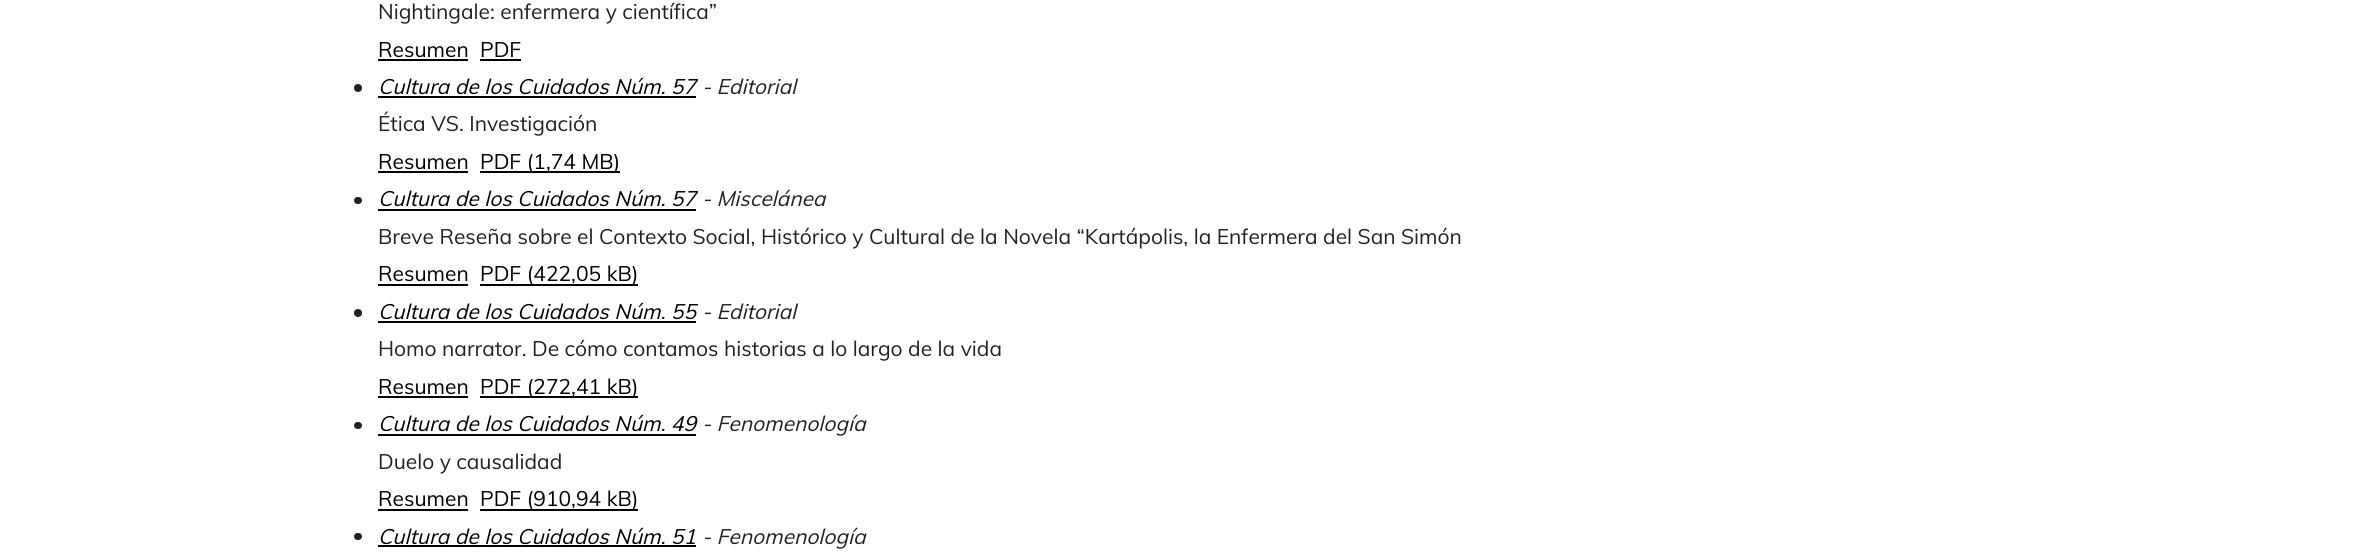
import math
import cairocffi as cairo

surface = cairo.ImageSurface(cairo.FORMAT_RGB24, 2375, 560)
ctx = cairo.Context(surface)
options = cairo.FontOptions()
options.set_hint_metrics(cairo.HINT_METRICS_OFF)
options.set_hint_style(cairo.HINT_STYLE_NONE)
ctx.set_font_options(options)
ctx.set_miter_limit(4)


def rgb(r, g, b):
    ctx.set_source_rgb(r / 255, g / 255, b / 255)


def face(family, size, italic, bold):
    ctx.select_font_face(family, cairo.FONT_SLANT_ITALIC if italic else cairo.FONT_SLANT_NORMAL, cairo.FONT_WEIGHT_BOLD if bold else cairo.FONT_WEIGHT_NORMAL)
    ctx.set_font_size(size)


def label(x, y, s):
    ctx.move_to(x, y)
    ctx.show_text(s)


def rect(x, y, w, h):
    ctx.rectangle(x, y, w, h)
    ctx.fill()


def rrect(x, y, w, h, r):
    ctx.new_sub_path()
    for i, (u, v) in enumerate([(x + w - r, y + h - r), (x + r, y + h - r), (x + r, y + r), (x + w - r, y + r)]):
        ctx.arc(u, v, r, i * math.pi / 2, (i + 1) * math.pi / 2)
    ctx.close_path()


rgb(255, 255, 255)
ctx.paint()
face('Muli', 21, 0, 0)
rgb(33, 33, 33)
label(378, 19, 'Nightingale: enfermera y científica”')
rgb(0, 0, 0)
label(378, 57, 'Resumen')
rect(378, 59, 90, 2)
label(480, 57, 'PDF')
rect(480, 59, 41, 2)
rgb(33, 33, 33)
ctx.new_path()
ctx.arc(358, 88, 4, 0, 2 * math.pi)
ctx.fill()
face('Muli', 21, 1, 0)
rgb(0, 0, 0)
label(378, 94, 'Cultura de los Cuidados Núm. 57')
rect(378, 96, 318, 2)
rgb(33, 33, 33)
label(702, 94, '- Editorial')
face('Muli', 21, 0, 0)
label(378, 131, 'Ética VS. Investigación')
rgb(0, 0, 0)
label(378, 169, 'Resumen')
rect(378, 171, 90, 2)
rect(480, 171, 140, 2)
label(480, 169, 'PDF (1,74 MB)')
rgb(33, 33, 33)
rrect(354, 197, 8, 7, 3.5)
ctx.fill()
face('Muli', 21, 1, 0)
rgb(0, 0, 0)
label(378, 206, 'Cultura de los Cuidados Núm. 57')
rect(378, 209, 318, 2)
rgb(33, 33, 33)
label(702, 206, '- Miscelánea')
face('Muli', 21, 0, 0)
label(378, 244, 'Breve Reseña sobre el Contexto Social, Histórico y Cultural de la Novela “Kartápolis, la Enfermera del San Simón')
rgb(0, 0, 0)
label(378, 281, 'Resumen')
rect(378, 284, 90, 2)
rect(480, 284, 158, 2)
label(480, 281, 'PDF (422,05 kB)')
rgb(33, 33, 33)
ctx.new_path()
ctx.arc(358, 313, 4, 0, 2 * math.pi)
ctx.fill()
face('Muli', 21, 1, 0)
rgb(0, 0, 0)
label(378, 319, 'Cultura de los Cuidados Núm. 55')
rect(378, 321, 318, 2)
rgb(33, 33, 33)
label(702, 319, '- Editorial')
face('Muli', 21, 0, 0)
label(378, 356, 'Homo narrator. De cómo contamos historias a lo largo de la vida')
rgb(0, 0, 0)
label(378, 394, 'Resumen')
rect(378, 396, 90, 2)
rect(480, 396, 158, 2)
label(480, 394, 'PDF (272,41 kB)')
rgb(33, 33, 33)
rrect(354, 422, 8, 7, 3.5)
ctx.fill()
face('Muli', 21, 1, 0)
rgb(0, 0, 0)
label(378, 431, 'Cultura de los Cuidados Núm. 49')
rect(378, 434, 318, 2)
rgb(33, 33, 33)
label(702, 431, '- Fenomenología')
face('Muli', 21, 0, 0)
label(378, 469, 'Duelo y causalidad')
rgb(0, 0, 0)
label(378, 506, 'Resumen')
rect(378, 509, 90, 2)
rect(480, 509, 158, 2)
label(480, 506, 'PDF (910,94 kB)')
rgb(33, 33, 33)
rrect(354, 533, 8, 7, 3.5)
ctx.fill()
face('Muli', 21, 1, 0)
rgb(0, 0, 0)
label(378, 544, 'Cultura de los Cuidados Núm. 51')
rect(378, 545, 318, 2)
rgb(33, 33, 33)
label(702, 544, '- Fenomenología')
surface.write_to_png('render.png')
